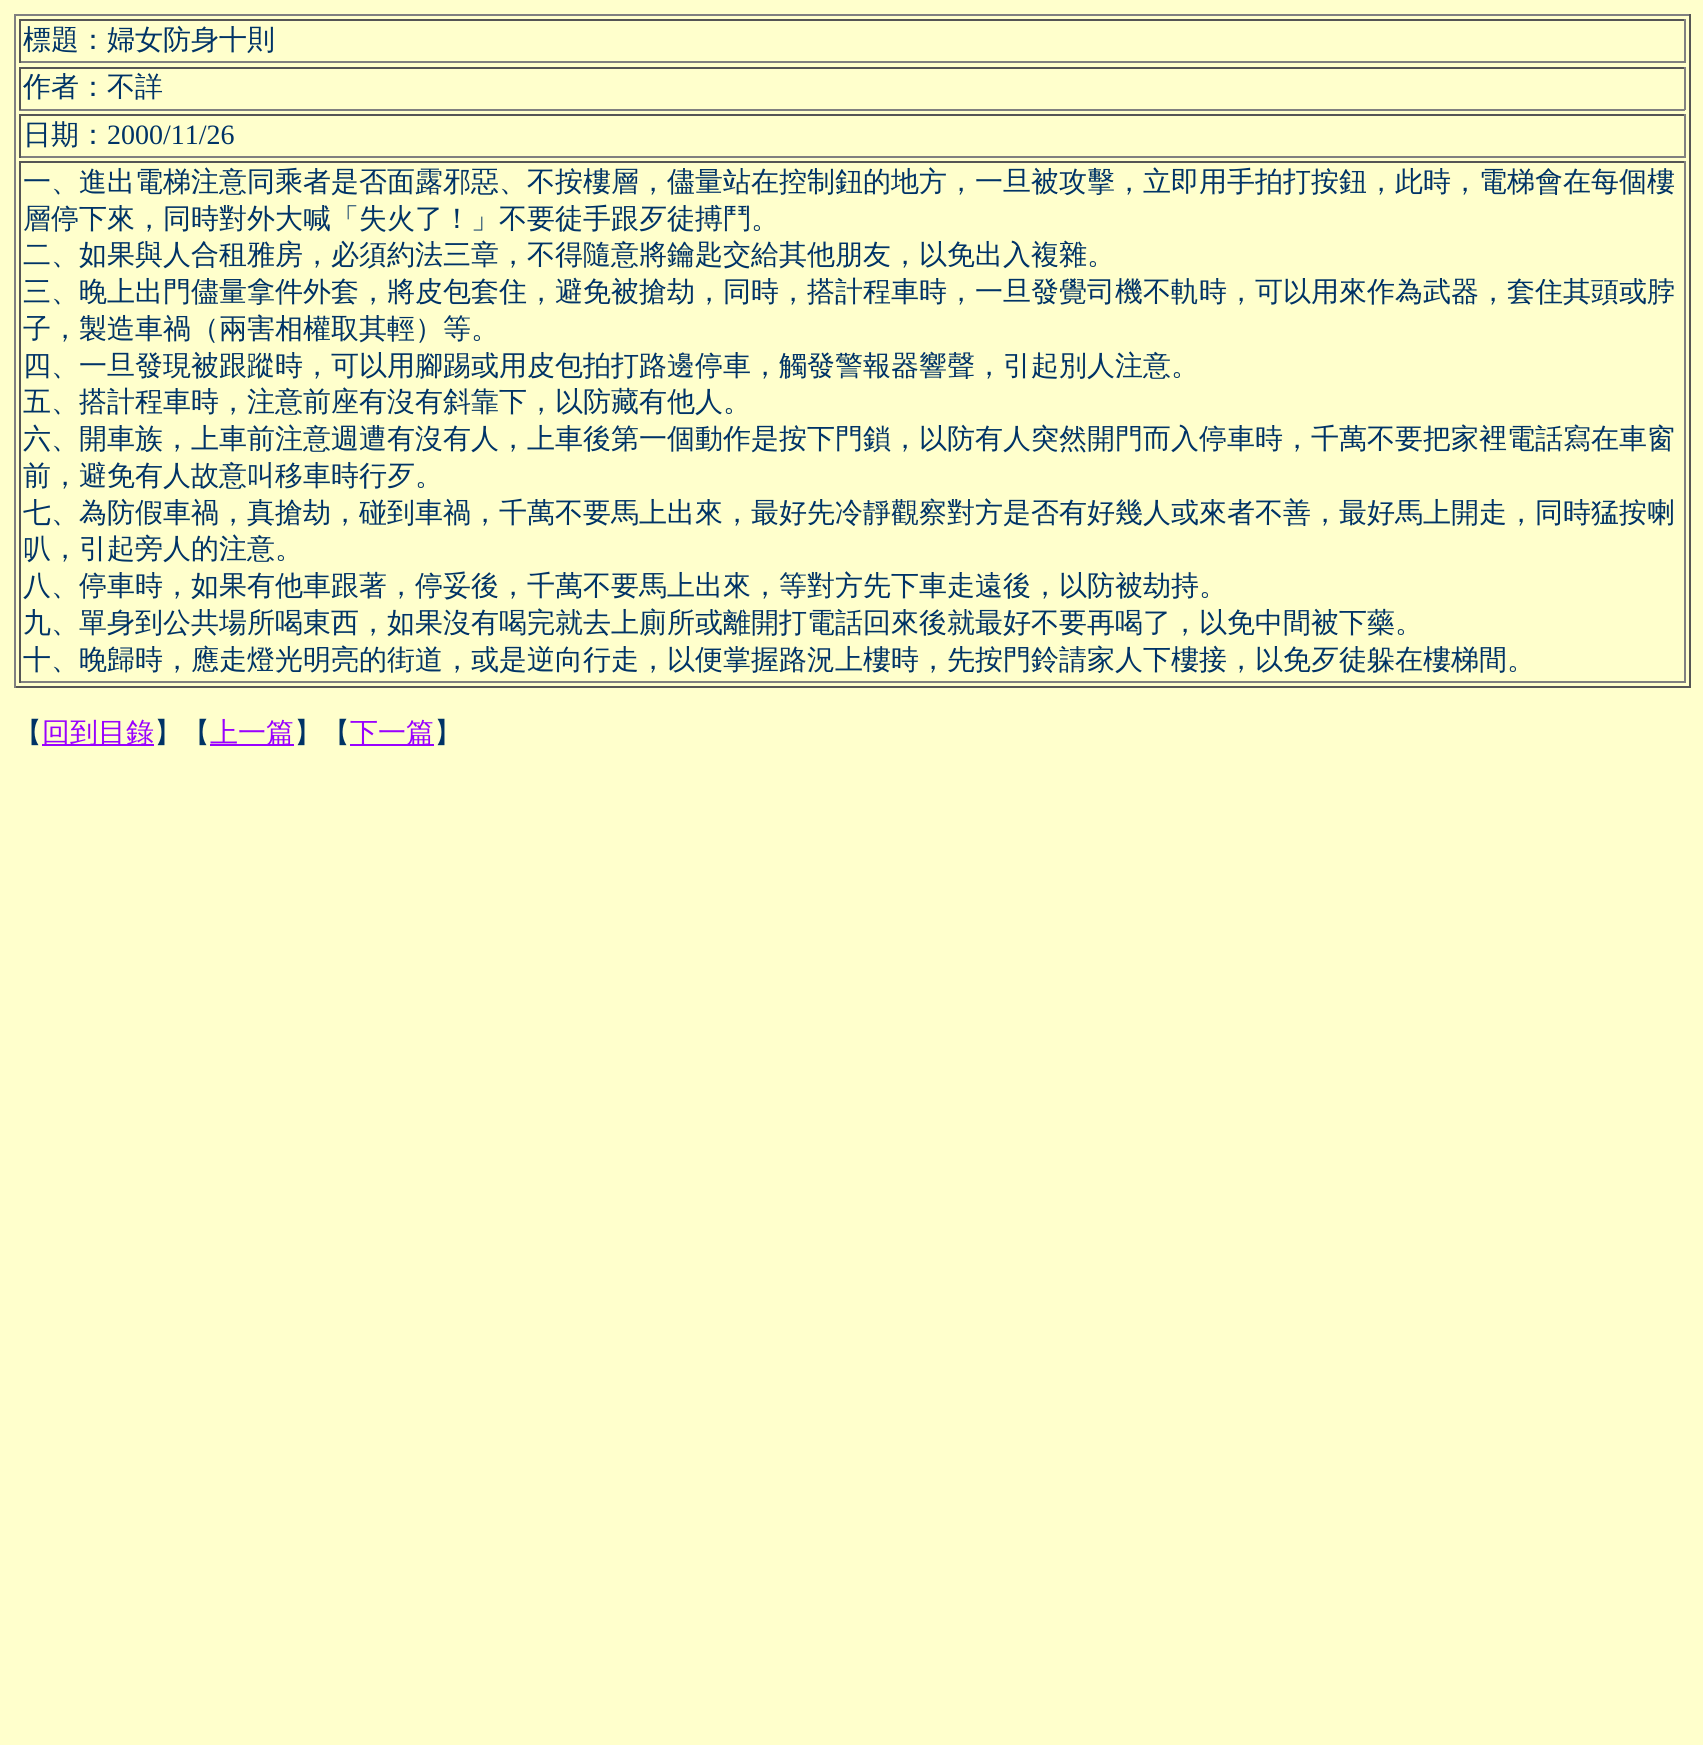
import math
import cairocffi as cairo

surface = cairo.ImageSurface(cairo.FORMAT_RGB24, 1703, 1745)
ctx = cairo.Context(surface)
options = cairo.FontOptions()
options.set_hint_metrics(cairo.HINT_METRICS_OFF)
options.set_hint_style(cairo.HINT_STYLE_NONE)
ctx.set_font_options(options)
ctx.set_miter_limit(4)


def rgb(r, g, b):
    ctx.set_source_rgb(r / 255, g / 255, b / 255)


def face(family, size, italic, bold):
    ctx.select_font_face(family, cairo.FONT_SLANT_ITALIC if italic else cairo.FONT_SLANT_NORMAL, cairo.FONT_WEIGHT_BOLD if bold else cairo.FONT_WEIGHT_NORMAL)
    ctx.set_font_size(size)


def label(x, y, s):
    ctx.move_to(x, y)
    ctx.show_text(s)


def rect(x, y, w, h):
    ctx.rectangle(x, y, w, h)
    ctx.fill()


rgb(255, 255, 204)
ctx.paint()
rgb(128, 128, 128)
rect(14, 14, 1677, 2)
rgb(85, 85, 85)
rect(1689, 14, 2, 674)
rect(14, 686, 1677, 2)
rgb(128, 128, 128)
rect(14, 14, 2, 674)
rgb(85, 85, 85)
rect(19, 19, 1666, 2)
rgb(128, 128, 128)
rect(1684, 19, 2, 44)
rect(19, 61, 1666, 2)
rgb(85, 85, 85)
rect(19, 19, 2, 44)
face('WenQuanYi Zen Hei Medium', 28, 0, 0)
rgb(0, 51, 102)
label(23, 49, '標題：婦女防身十則')
rgb(85, 85, 85)
rect(19, 67, 1666, 2)
rgb(128, 128, 128)
rect(1684, 67, 2, 43)
rect(19, 109, 1666, 2)
rgb(85, 85, 85)
rect(19, 67, 2, 43)
rgb(0, 51, 102)
label(23, 96, '作者：不詳')
rgb(85, 85, 85)
rect(19, 114, 1666, 2)
rgb(128, 128, 128)
rect(1684, 114, 2, 44)
rect(19, 156, 1666, 2)
rgb(85, 85, 85)
rect(19, 114, 2, 44)
rgb(0, 51, 102)
label(23, 144, '日期：')
face('Liberation Serif', 28, 0, 0)
label(107, 144, '2000/11/26')
rgb(85, 85, 85)
rect(19, 161, 1666, 2)
rgb(128, 128, 128)
rect(1684, 161, 2, 522)
rect(19, 681, 1666, 2)
rgb(85, 85, 85)
rect(19, 161, 2, 522)
face('WenQuanYi Zen Hei Medium', 28, 0, 0)
rgb(0, 51, 102)
label(23, 191, '一、進出電梯注意同乘者是否面露邪惡、不按樓層，儘量站在控制鈕的地方，一旦被攻擊，立即用手拍打按鈕，此時，電梯會在每個樓')
label(23, 228, '層停下來，同時對外大喊「失火了！」不要徒手跟歹徒搏鬥。')
label(23, 264, '二、如果與人合租雅房，必須約法三章，不得隨意將鑰匙交給其他朋友，以免出入複雜。')
label(23, 301, '三、晚上出門儘量拿件外套，將皮包套住，避免被搶劫，同時，搭計程車時，一旦發覺司機不軌時，可以用來作為武器，套住其頭或脖')
label(23, 338, '子，製造車禍（兩害相權取其輕）等。')
label(23, 375, '四、一旦發現被跟蹤時，可以用腳踢或用皮包拍打路邊停車，觸發警報器響聲，引起別人注意。')
label(23, 411, '五、搭計程車時，注意前座有沒有斜靠下，以防藏有他人。')
label(23, 448, '六、開車族，上車前注意週遭有沒有人，上車後第一個動作是按下門鎖，以防有人突然開門而入停車時，千萬不要把家裡電話寫在車窗')
label(23, 485, '前，避免有人故意叫移車時行歹。')
label(23, 522, '七、為防假車禍，真搶劫，碰到車禍，千萬不要馬上出來，最好先冷靜觀察對方是否有好幾人或來者不善，最好馬上開走，同時猛按喇')
label(23, 558, '叭，引起旁人的注意。')
label(23, 595, '八、停車時，如果有他車跟著，停妥後，千萬不要馬上出來，等對方先下車走遠後，以防被劫持。')
label(23, 632, '九、單身到公共場所喝東西，如果沒有喝完就去上廁所或離開打電話回來後就最好不要再喝了，以免中間被下藥。')
label(23, 669, '十、晚歸時，應走燈光明亮的街道，或是逆向行走，以便掌握路況上樓時，先按門鈴請家人下樓接，以免歹徒躲在樓梯間。')
label(14, 742, '【')
rgb(153, 0, 255)
rect(42, 744, 112, 2)
label(42, 742, '回到目錄')
rgb(0, 51, 102)
label(154, 742, '】【')
rgb(153, 0, 255)
rect(210, 744, 84, 2)
label(210, 742, '上一篇')
rgb(0, 51, 102)
label(294, 742, '】【')
rgb(153, 0, 255)
rect(350, 744, 84, 2)
label(350, 742, '下一篇')
rgb(0, 51, 102)
label(434, 742, '】')
surface.write_to_png('render.png')
